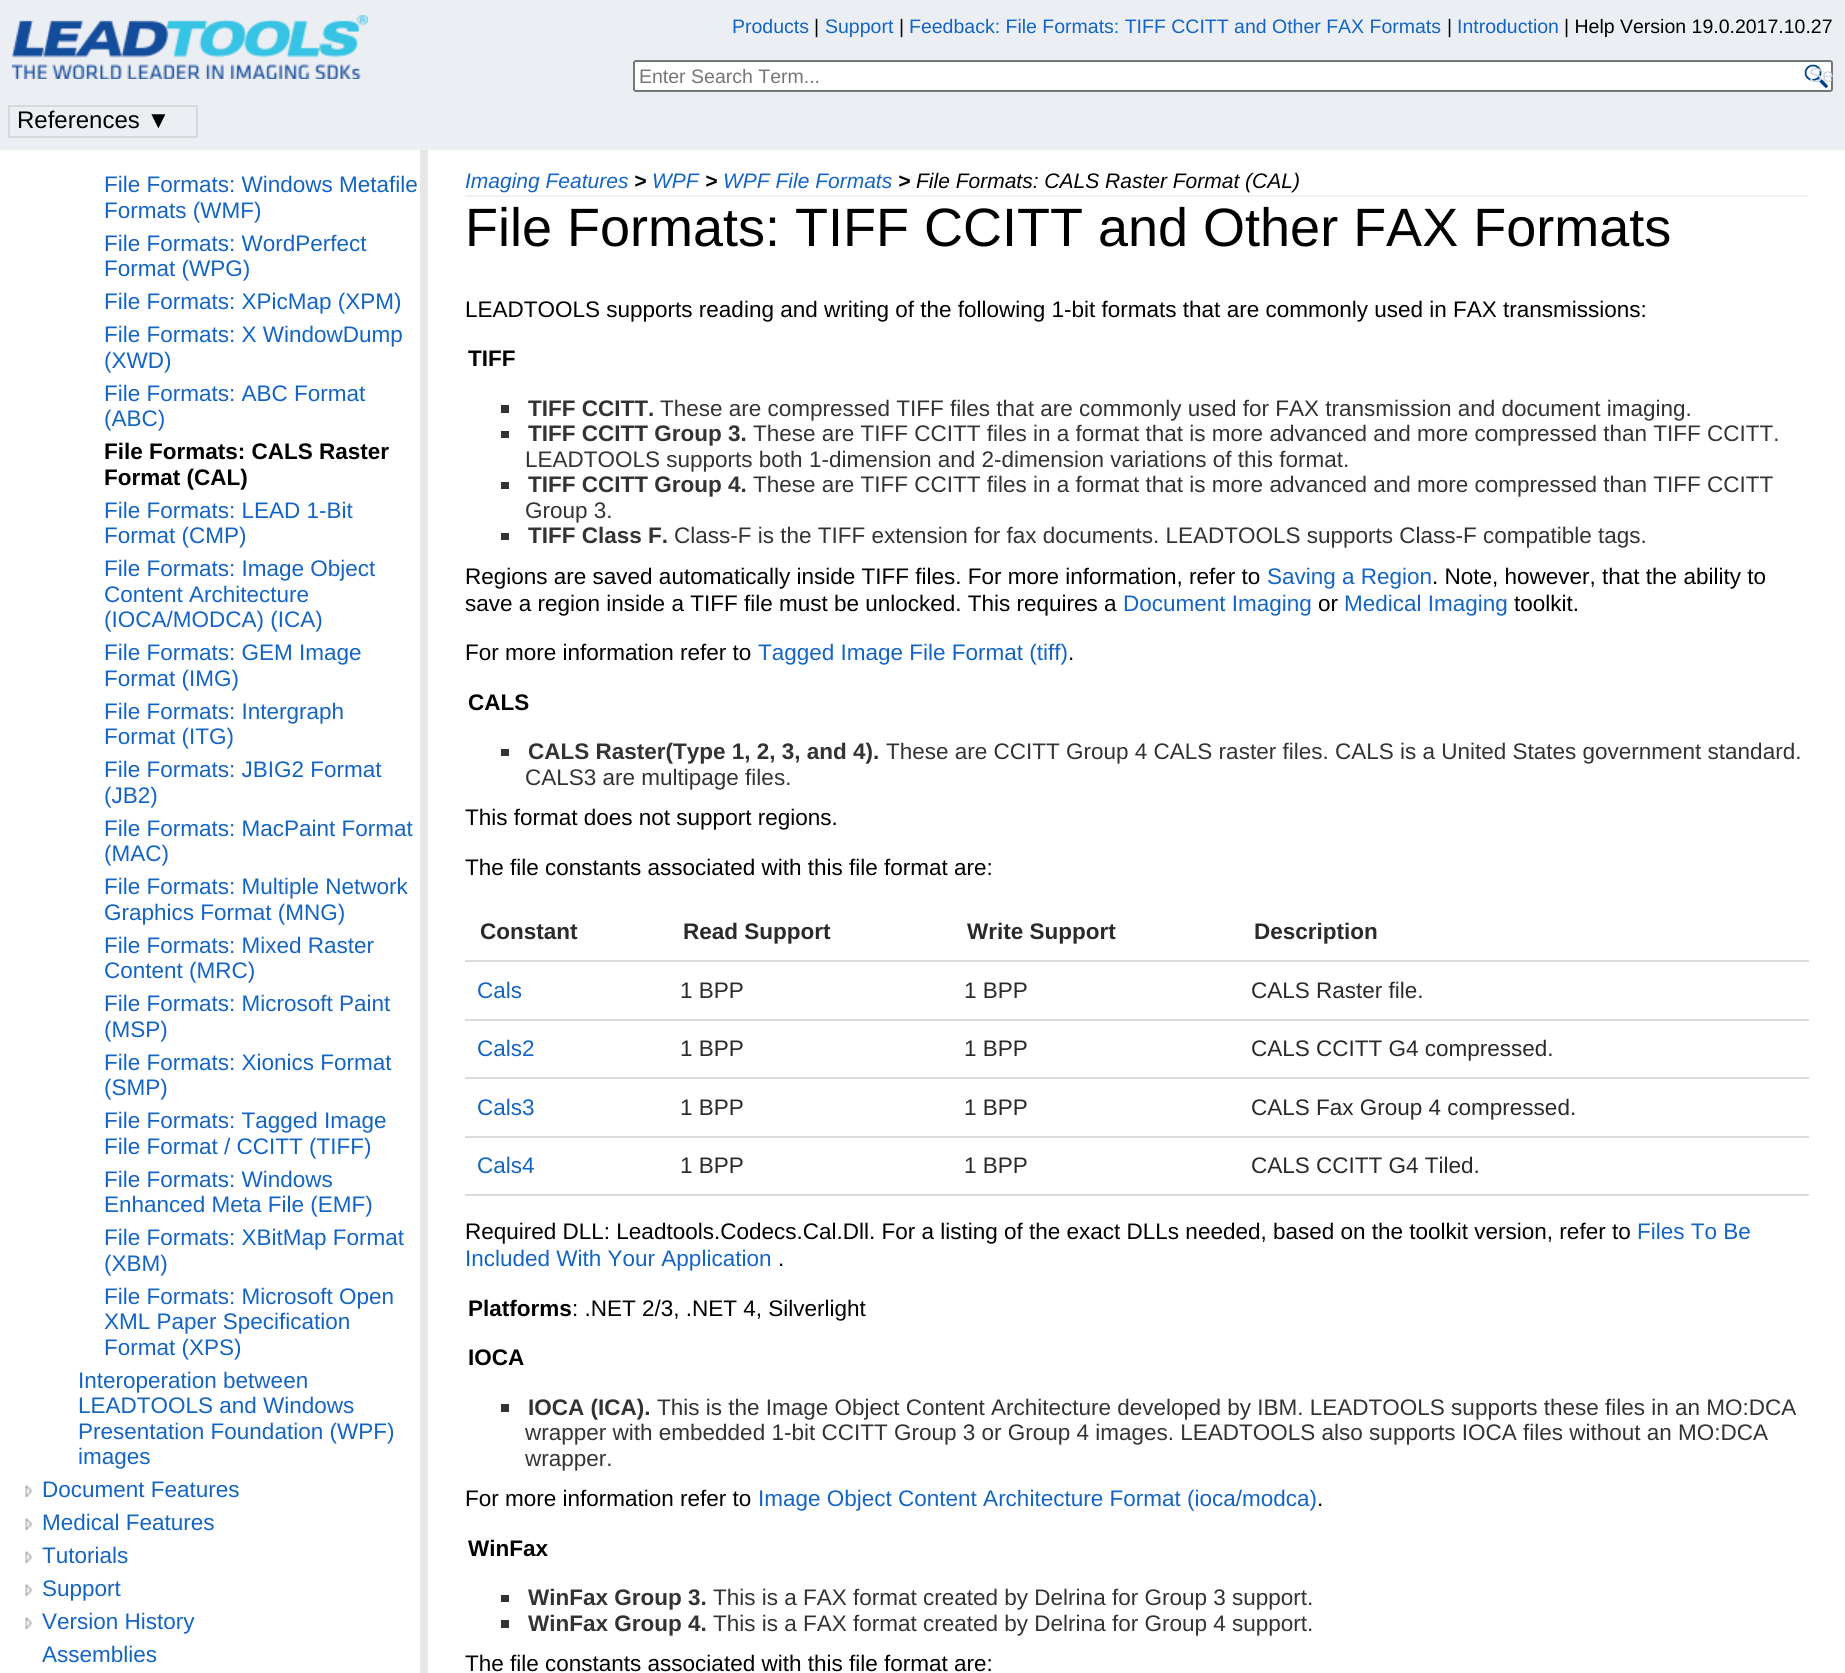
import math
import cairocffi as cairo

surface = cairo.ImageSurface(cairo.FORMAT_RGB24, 1845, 1673)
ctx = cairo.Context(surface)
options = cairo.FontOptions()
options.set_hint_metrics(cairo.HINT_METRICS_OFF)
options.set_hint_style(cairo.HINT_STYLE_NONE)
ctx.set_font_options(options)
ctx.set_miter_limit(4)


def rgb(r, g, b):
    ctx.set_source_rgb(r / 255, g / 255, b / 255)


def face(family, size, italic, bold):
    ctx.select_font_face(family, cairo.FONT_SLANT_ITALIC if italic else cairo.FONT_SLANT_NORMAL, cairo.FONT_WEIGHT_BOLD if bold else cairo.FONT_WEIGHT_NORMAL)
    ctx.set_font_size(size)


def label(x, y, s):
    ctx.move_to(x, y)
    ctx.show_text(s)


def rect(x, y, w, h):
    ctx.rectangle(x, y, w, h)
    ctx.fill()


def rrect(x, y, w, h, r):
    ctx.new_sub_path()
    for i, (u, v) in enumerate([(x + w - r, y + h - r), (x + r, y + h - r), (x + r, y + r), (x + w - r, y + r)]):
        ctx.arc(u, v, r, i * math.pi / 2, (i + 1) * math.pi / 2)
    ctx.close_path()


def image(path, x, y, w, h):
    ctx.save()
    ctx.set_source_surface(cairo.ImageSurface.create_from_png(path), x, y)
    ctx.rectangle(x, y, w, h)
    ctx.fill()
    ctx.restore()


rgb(255, 255, 255)
ctx.paint()
rgb(235, 238, 243)
rect(0, 0, 1845, 150)
image('image0.png', 12, 15, 356, 64)
face('Liberation Sans', 19.5, 0, 0)
rgb(19, 100, 196)
label(732, 33, 'Products')
rgb(0, 0, 0)
label(814, 33, '|')
rgb(19, 100, 196)
label(825, 33, 'Support')
rgb(0, 0, 0)
label(899, 33, '|')
rgb(19, 100, 196)
label(909, 33, 'Feedback: File Formats: TIFF CCITT and Other FAX Formats')
rgb(0, 0, 0)
label(1447, 33, '|')
rgb(19, 100, 196)
label(1457, 33, 'Introduction')
rgb(0, 0, 0)
label(1564, 33, '| Help Version 19.0.2017.10.27')
rgb(255, 255, 255)
rrect(634, 61, 1198, 30, 2)
ctx.fill_preserve()
rgb(118, 118, 118)
ctx.stroke()
rgb(117, 117, 117)
label(639, 83, 'Enter Search Term...')
image('image1.png', 1804, 64, 24, 24)
face('Liberation Sans', 20, 0, 0)
rgb(206, 216, 226)
label(1809, 82, 'Se')
ctx.rectangle(9, 106, 188, 31)
rgb(214, 216, 220)
ctx.stroke()
face('Liberation Sans', 24, 0, 0)
rgb(0, 0, 0)
label(17, 128, 'References ▼')
rgb(230, 230, 230)
rect(420, 150, 8, 1523)
face('Liberation Sans', 22.5, 0, 0)
rgb(19, 100, 196)
label(104, 192, 'File Formats: Windows Metafile')
label(104, 218, 'Formats (WMF)')
label(104, 251, 'File Formats: WordPerfect')
label(104, 276, 'Format (WPG)')
label(104, 309, 'File Formats: XPicMap (XPM)')
label(104, 342, 'File Formats: X WindowDump')
label(104, 368, '(XWD)')
label(104, 401, 'File Formats: ABC Format')
label(104, 426, '(ABC)')
face('Liberation Sans', 22.5, 0, 1)
rgb(0, 0, 0)
label(104, 459, 'File Formats: CALS Raster')
label(104, 485, 'Format (CAL)')
face('Liberation Sans', 22.5, 0, 0)
rgb(19, 100, 196)
label(104, 518, 'File Formats: LEAD 1-Bit')
label(104, 543, 'Format (CMP)')
label(104, 576, 'File Formats: Image Object')
label(104, 602, 'Content Architecture')
label(104, 627, '(IOCA/MODCA) (ICA)')
label(104, 660, 'File Formats: GEM Image')
label(104, 686, 'Format (IMG)')
label(104, 719, 'File Formats: Intergraph')
label(104, 744, 'Format (ITG)')
label(104, 777, 'File Formats: JBIG2 Format')
label(104, 803, '(JB2)')
label(104, 836, 'File Formats: MacPaint Format')
label(104, 861, '(MAC)')
label(104, 894, 'File Formats: Multiple Network')
label(104, 920, 'Graphics Format (MNG)')
label(104, 953, 'File Formats: Mixed Raster')
label(104, 978, 'Content (MRC)')
label(104, 1011, 'File Formats: Microsoft Paint')
label(104, 1037, '(MSP)')
label(104, 1070, 'File Formats: Xionics Format')
label(104, 1095, '(SMP)')
label(104, 1128, 'File Formats: Tagged Image')
label(104, 1154, 'File Format / CCITT (TIFF)')
label(104, 1187, 'File Formats: Windows')
label(104, 1212, 'Enhanced Meta File (EMF)')
label(104, 1245, 'File Formats: XBitMap Format')
label(104, 1271, '(XBM)')
label(104, 1304, 'File Formats: Microsoft Open')
label(104, 1329, 'XML Paper Specification')
label(104, 1355, 'Format (XPS)')
label(78, 1388, 'Interoperation between')
label(78, 1413, 'LEADTOOLS and Windows')
label(78, 1439, 'Presentation Foundation (WPF)')
label(78, 1464, 'images')
image('image2.png', 25, 1485, 7, 13)
label(42, 1497, 'Document Features')
image('image2.png', 25, 1518, 7, 13)
label(42, 1530, 'Medical Features')
image('image2.png', 25, 1551, 7, 13)
label(42, 1563, 'Tutorials')
image('image2.png', 25, 1584, 7, 13)
label(42, 1596, 'Support')
image('image2.png', 25, 1617, 7, 13)
label(42, 1629, 'Version History')
label(42, 1662, 'Assemblies')
rgb(241, 241, 241)
rect(465, 195, 1343, 2)
face('Liberation Sans', 21, 1, 0)
rgb(19, 100, 196)
label(465, 188, 'Imaging Features')
face('Liberation Sans', 21, 1, 1)
rgb(0, 0, 0)
label(634, 188, '>')
face('Liberation Sans', 21, 1, 0)
rgb(19, 100, 196)
label(652, 188, 'WPF')
face('Liberation Sans', 21, 1, 1)
rgb(0, 0, 0)
label(705, 188, '>')
face('Liberation Sans', 21, 1, 0)
rgb(19, 100, 196)
label(723, 188, 'WPF File Formats')
face('Liberation Sans', 21, 1, 1)
rgb(0, 0, 0)
label(898, 188, '>')
face('Liberation Sans', 21, 1, 0)
label(916, 188, 'File Formats: CALS Raster Format (CAL)')
face('Liberation Sans', 54, 0, 0)
label(465, 246, 'File Formats: TIFF CCITT and Other FAX Formats')
face('Liberation Sans', 22.5, 0, 0)
label(465, 317, 'LEADTOOLS supports reading and writing of the following 1-bit formats that are commonly used in FAX transmissions:')
face('Liberation Sans', 22.5, 0, 1)
label(468, 366, 'TIFF')
rgb(51, 51, 51)
rect(501, 405, 8, 8)
label(528, 416, 'TIFF CCITT.')
face('Liberation Sans', 22.5, 0, 0)
label(660, 416, 'These are compressed TIFF files that are commonly used for FAX transmission and document imaging.')
rect(501, 431, 8, 7)
face('Liberation Sans', 22.5, 0, 1)
label(528, 441, 'TIFF CCITT Group 3.')
face('Liberation Sans', 22.5, 0, 0)
label(753, 441, 'These are TIFF CCITT files in a format that is more advanced and more compressed than TIFF CCITT.')
label(525, 467, 'LEADTOOLS supports both 1-dimension and 2-dimension variations of this format.')
rect(501, 482, 8, 7)
face('Liberation Sans', 22.5, 0, 1)
label(528, 492, 'TIFF CCITT Group 4.')
face('Liberation Sans', 22.5, 0, 0)
label(753, 492, 'These are TIFF CCITT files in a format that is more advanced and more compressed than TIFF CCITT')
label(525, 518, 'Group 3.')
rect(501, 533, 8, 7)
face('Liberation Sans', 22.5, 0, 1)
label(528, 543, 'TIFF Class F.')
face('Liberation Sans', 22.5, 0, 0)
label(674, 543, 'Class-F is the TIFF extension for fax documents. LEADTOOLS supports Class-F compatible tags.')
rgb(0, 0, 0)
label(465, 584, 'Regions are saved automatically inside TIFF files. For more information, refer to')
rgb(19, 100, 196)
label(1267, 584, 'Saving a Region')
rgb(0, 0, 0)
label(1432, 584, '. Note, however, that the ability to')
label(465, 611, 'save a region inside a TIFF file must be unlocked. This requires a')
rgb(19, 100, 196)
label(1123, 611, 'Document Imaging')
rgb(0, 0, 0)
label(1318, 611, 'or')
rgb(19, 100, 196)
label(1344, 611, 'Medical Imaging')
rgb(0, 0, 0)
label(1514, 611, 'toolkit.')
label(465, 660, 'For more information refer to')
rgb(19, 100, 196)
label(758, 660, 'Tagged Image File Format (tiff)')
rgb(0, 0, 0)
label(1068, 660, '.')
face('Liberation Sans', 22.5, 0, 1)
label(468, 710, 'CALS')
rgb(51, 51, 51)
rect(501, 749, 8, 7)
label(528, 759, 'CALS Raster(Type 1, 2, 3, and 4).')
face('Liberation Sans', 22.5, 0, 0)
label(886, 759, 'These are CCITT Group 4 CALS raster files. CALS is a United States government standard.')
label(525, 785, 'CALS3 are multipage files.')
rgb(0, 0, 0)
label(465, 825, 'This format does not support regions.')
label(465, 875, 'The file constants associated with this file format are:')
face('Liberation Sans', 22.5, 0, 1)
rgb(42, 42, 42)
label(480, 939, 'Constant')
label(683, 939, 'Read Support')
label(967, 939, 'Write Support')
rgb(219, 219, 219)
rect(465, 960, 1344, 2)
rgb(42, 42, 42)
label(1254, 939, 'Description')
face('Liberation Sans', 22.5, 0, 0)
rgb(19, 100, 196)
label(477, 998, 'Cals')
rgb(42, 42, 42)
label(680, 998, '1 BPP')
label(964, 998, '1 BPP')
rgb(219, 219, 219)
rect(465, 1019, 1344, 2)
rgb(42, 42, 42)
label(1251, 998, 'CALS Raster file.')
rgb(19, 100, 196)
label(477, 1056, 'Cals2')
rgb(42, 42, 42)
label(680, 1056, '1 BPP')
label(964, 1056, '1 BPP')
rgb(219, 219, 219)
rect(465, 1077, 1344, 2)
rgb(42, 42, 42)
label(1251, 1056, 'CALS CCITT G4 compressed.')
rgb(19, 100, 196)
label(477, 1115, 'Cals3')
rgb(42, 42, 42)
label(680, 1115, '1 BPP')
label(964, 1115, '1 BPP')
rgb(219, 219, 219)
rect(465, 1136, 1344, 2)
rgb(42, 42, 42)
label(1251, 1115, 'CALS Fax Group 4 compressed.')
rgb(19, 100, 196)
label(477, 1173, 'Cals4')
rgb(42, 42, 42)
label(680, 1173, '1 BPP')
label(964, 1173, '1 BPP')
rgb(219, 219, 219)
rect(465, 1194, 1344, 2)
rgb(42, 42, 42)
label(1251, 1173, 'CALS CCITT G4 Tiled.')
rgb(0, 0, 0)
label(465, 1239, 'Required DLL: Leadtools.Codecs.Cal.Dll. For a listing of the exact DLLs needed, based on the toolkit version, refer to')
rgb(19, 100, 196)
label(1637, 1239, 'Files To Be')
label(465, 1266, 'Included With Your Application')
rgb(0, 0, 0)
label(778, 1266, '.')
face('Liberation Sans', 22.5, 0, 1)
label(468, 1316, 'Platforms')
face('Liberation Sans', 22.5, 0, 0)
label(572, 1316, ': .NET 2/3, .NET 4, Silverlight')
face('Liberation Sans', 22.5, 0, 1)
label(468, 1365, 'IOCA')
rgb(51, 51, 51)
rect(501, 1404, 8, 8)
label(528, 1415, 'IOCA (ICA).')
face('Liberation Sans', 22.5, 0, 0)
label(657, 1415, 'This is the Image Object Content Architecture developed by IBM. LEADTOOLS supports these files in an MO:DCA')
label(525, 1440, 'wrapper with embedded 1-bit CCITT Group 3 or Group 4 images. LEADTOOLS also supports IOCA files without an MO:DCA')
label(525, 1466, 'wrapper.')
rgb(0, 0, 0)
label(465, 1506, 'For more information refer to')
rgb(19, 100, 196)
label(758, 1506, 'Image Object Content Architecture Format (ioca/modca)')
rgb(0, 0, 0)
label(1317, 1506, '.')
face('Liberation Sans', 22.5, 0, 1)
label(468, 1556, 'WinFax')
rgb(51, 51, 51)
rect(501, 1595, 8, 7)
label(528, 1605, 'WinFax Group 3.')
face('Liberation Sans', 22.5, 0, 0)
label(713, 1605, 'This is a FAX format created by Delrina for Group 3 support.')
rect(501, 1620, 8, 8)
face('Liberation Sans', 22.5, 0, 1)
label(528, 1631, 'WinFax Group 4.')
face('Liberation Sans', 22.5, 0, 0)
label(713, 1631, 'This is a FAX format created by Delrina for Group 4 support.')
rgb(0, 0, 0)
label(465, 1671, 'The file constants associated with this file format are:')
surface.write_to_png('render.png')
